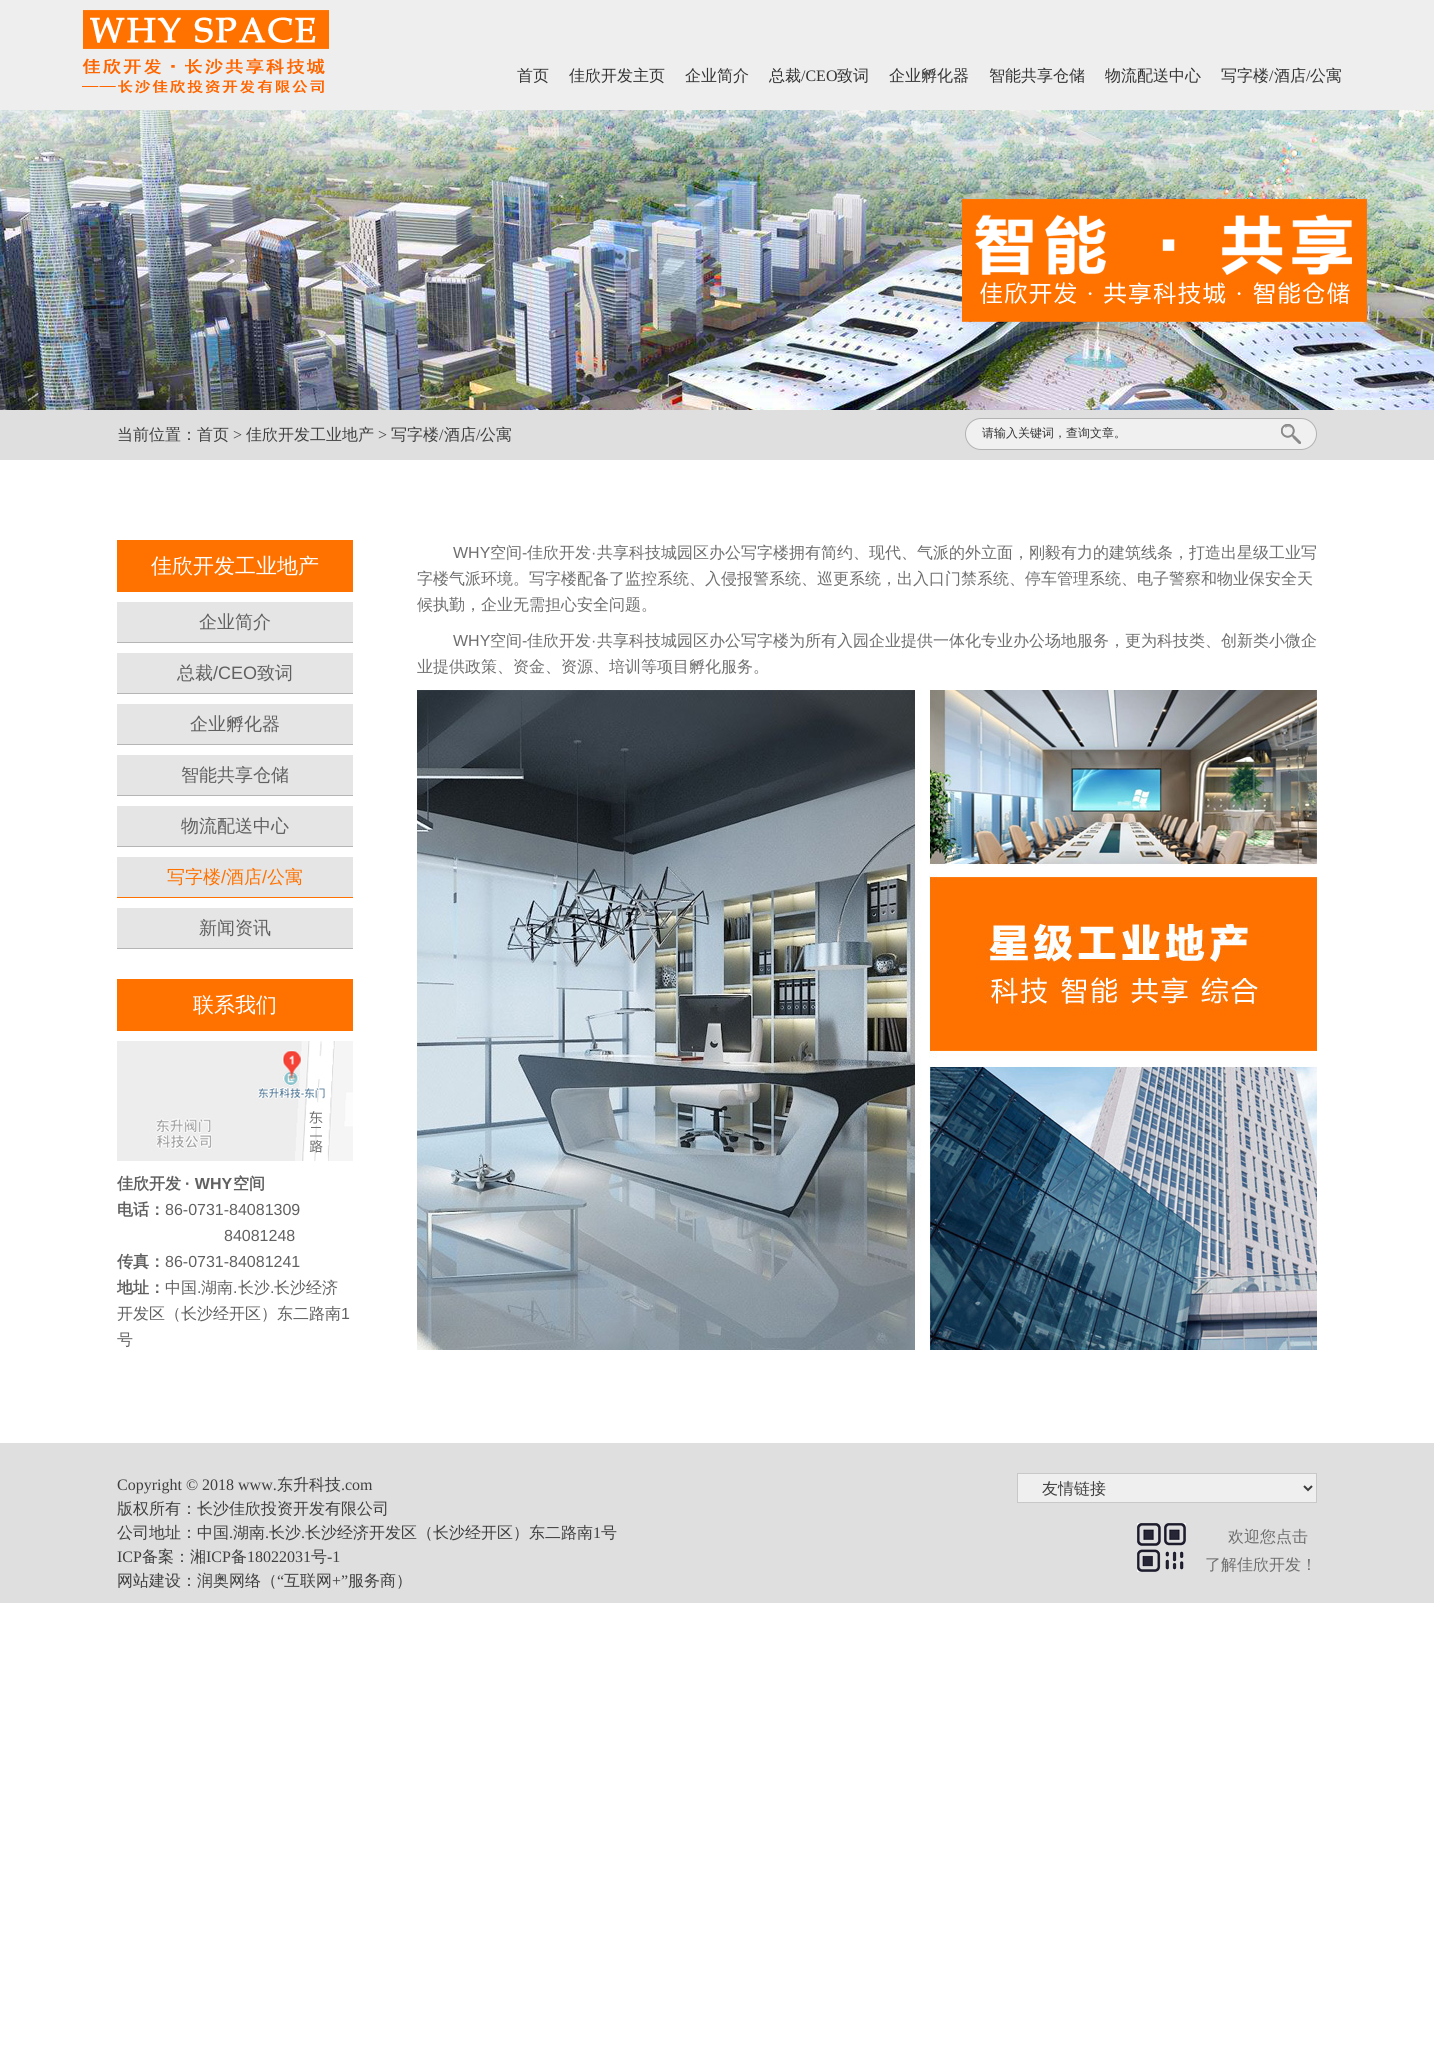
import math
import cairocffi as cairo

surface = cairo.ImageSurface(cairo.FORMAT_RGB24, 1434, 2067)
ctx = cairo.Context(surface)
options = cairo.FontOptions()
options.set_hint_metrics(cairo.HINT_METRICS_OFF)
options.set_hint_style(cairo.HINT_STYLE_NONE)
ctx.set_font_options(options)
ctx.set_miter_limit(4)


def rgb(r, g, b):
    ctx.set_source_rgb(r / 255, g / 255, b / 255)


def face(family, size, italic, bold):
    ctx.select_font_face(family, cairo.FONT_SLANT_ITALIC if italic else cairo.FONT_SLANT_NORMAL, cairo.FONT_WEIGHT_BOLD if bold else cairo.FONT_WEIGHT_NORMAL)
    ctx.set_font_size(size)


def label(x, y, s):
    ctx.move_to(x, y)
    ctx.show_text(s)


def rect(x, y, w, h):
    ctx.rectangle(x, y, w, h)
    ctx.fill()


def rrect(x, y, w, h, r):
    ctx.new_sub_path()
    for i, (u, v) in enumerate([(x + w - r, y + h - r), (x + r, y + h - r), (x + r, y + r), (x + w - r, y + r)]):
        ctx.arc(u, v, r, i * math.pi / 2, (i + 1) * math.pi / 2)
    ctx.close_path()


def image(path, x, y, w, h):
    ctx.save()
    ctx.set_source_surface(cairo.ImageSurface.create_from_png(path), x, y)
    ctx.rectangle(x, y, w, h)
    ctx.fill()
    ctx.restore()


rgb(255, 255, 255)
ctx.paint()
rgb(238, 238, 238)
rect(0, 0, 1434, 110)
image('image0.png', 82, 10, 247, 84)
face('WenQuanYi Zen Hei Medium', 16, 0, 0)
rgb(51, 51, 51)
label(517, 81, '首页')
label(569, 81, '佳欣开发主页')
label(685, 81, '企业简介')
label(769, 81, '总裁')
face('Liberation Serif', 16, 0, 0)
label(801, 81, '/CEO')
face('WenQuanYi Zen Hei Medium', 16, 0, 0)
label(837, 81, '致词')
label(889, 81, '企业孵化器')
label(989, 81, '智能共享仓储')
label(1105, 81, '物流配送中心')
label(1221, 81, '写字楼')
face('Liberation Serif', 16, 0, 0)
label(1269, 81, '/')
face('WenQuanYi Zen Hei Medium', 16, 0, 0)
label(1274, 81, '酒店')
face('Liberation Serif', 16, 0, 0)
label(1306, 81, '/')
face('WenQuanYi Zen Hei Medium', 16, 0, 0)
label(1310, 81, '公寓')
image('image1.png', 0, 110, 1434, 300)
rgb(223, 223, 223)
rect(0, 410, 1434, 50)
rgb(63, 63, 63)
label(117, 440, '当前位置：首页')
face('Liberation Serif', 16, 0, 0)
label(233, 440, '>')
face('WenQuanYi Zen Hei Medium', 16, 0, 0)
label(246, 440, '佳欣开发工业地产')
face('Liberation Serif', 16, 0, 0)
label(378, 440, '>')
face('WenQuanYi Zen Hei Medium', 16, 0, 0)
label(391, 440, '写字楼')
face('Liberation Serif', 16, 0, 0)
label(439, 440, '/')
face('WenQuanYi Zen Hei Medium', 16, 0, 0)
label(444, 440, '酒店')
face('Liberation Serif', 16, 0, 0)
label(476, 440, '/')
face('WenQuanYi Zen Hei Medium', 16, 0, 0)
label(480, 440, '公寓')
rgb(240, 240, 240)
rrect(965.5, 418.5, 351, 31, 15.5)
ctx.fill_preserve()
rgb(178, 178, 178)
ctx.set_line_width(1)
ctx.stroke()
face('WenQuanYi Zen Hei Medium', 12, 0, 0)
rgb(51, 51, 51)
label(982, 437, '请输入关键词，查询文章。')
image('image2.png', 1281, 424, 20, 20)
rgb(255, 114, 0)
rect(117, 540, 236, 52)
face('WenQuanYi Zen Hei Medium', 21, 0, 0)
rgb(255, 255, 255)
label(151, 573, '佳欣开发工业地产')
rgb(229, 229, 229)
rect(117, 602, 236, 40)
rgb(181, 181, 181)
rect(117, 642, 236, 1)
face('WenQuanYi Zen Hei Medium', 18, 0, 0)
rgb(96, 96, 96)
label(199, 628, '企业简介')
rgb(229, 229, 229)
rect(117, 653, 236, 40)
rgb(181, 181, 181)
rect(117, 693, 236, 1)
rgb(96, 96, 96)
label(177, 679, '总裁')
face('Liberation Sans', 18, 0, 0)
label(213, 679, '/CEO')
face('WenQuanYi Zen Hei Medium', 18, 0, 0)
label(257, 679, '致词')
rgb(229, 229, 229)
rect(117, 704, 236, 40)
rgb(181, 181, 181)
rect(117, 744, 236, 1)
rgb(96, 96, 96)
label(190, 730, '企业孵化器')
rgb(229, 229, 229)
rect(117, 755, 236, 40)
rgb(181, 181, 181)
rect(117, 795, 236, 1)
rgb(96, 96, 96)
label(181, 781, '智能共享仓储')
rgb(229, 229, 229)
rect(117, 806, 236, 40)
rgb(181, 181, 181)
rect(117, 846, 236, 1)
rgb(96, 96, 96)
label(181, 832, '物流配送中心')
rgb(229, 229, 229)
rect(117, 857, 236, 40)
rgb(255, 114, 0)
rect(117, 897, 236, 1)
label(167, 883, '写字楼')
face('Liberation Sans', 18, 0, 0)
label(221, 883, '/')
face('WenQuanYi Zen Hei Medium', 18, 0, 0)
label(226, 883, '酒店')
face('Liberation Sans', 18, 0, 0)
label(262, 883, '/')
face('WenQuanYi Zen Hei Medium', 18, 0, 0)
label(267, 883, '公寓')
rgb(229, 229, 229)
rect(117, 908, 236, 40)
rgb(181, 181, 181)
rect(117, 948, 236, 1)
rgb(96, 96, 96)
label(199, 934, '新闻资讯')
rgb(255, 114, 0)
rect(117, 979, 236, 52)
face('WenQuanYi Zen Hei Medium', 21, 0, 0)
rgb(255, 255, 255)
label(193, 1012, '联系我们')
image('image3.png', 117, 1041, 236, 120)
face('WenQuanYi Zen Hei', 16, 0, 1)
rgb(96, 96, 96)
label(117, 1189, '佳欣开发')
face('Liberation Sans', 16, 0, 1)
label(185, 1189, '· WHY')
face('WenQuanYi Zen Hei', 16, 0, 1)
label(233, 1189, '空间')
label(117, 1215, '电话：')
face('Liberation Sans', 16, 0, 0)
label(165, 1215, '86-0731-84081309')
label(224, 1241, '84081248')
face('WenQuanYi Zen Hei', 16, 0, 1)
label(117, 1267, '传真：')
face('Liberation Sans', 16, 0, 0)
label(165, 1267, '86-0731-84081241')
face('WenQuanYi Zen Hei', 16, 0, 1)
label(117, 1293, '地址：')
face('WenQuanYi Zen Hei Medium', 16, 0, 0)
label(165, 1293, '中国')
face('Liberation Sans', 16, 0, 0)
label(197, 1293, '.')
face('WenQuanYi Zen Hei Medium', 16, 0, 0)
label(201, 1293, '湖南')
face('Liberation Sans', 16, 0, 0)
label(233, 1293, '.')
face('WenQuanYi Zen Hei Medium', 16, 0, 0)
label(238, 1293, '长沙')
face('Liberation Sans', 16, 0, 0)
label(270, 1293, '.')
face('WenQuanYi Zen Hei Medium', 16, 0, 0)
label(274, 1293, '长沙经济')
label(117, 1319, '开发区（长沙经开区）东二路南')
face('Liberation Sans', 16, 0, 0)
label(341, 1319, '1')
face('WenQuanYi Zen Hei Medium', 16, 0, 0)
label(117, 1345, '号')
face('Liberation Sans', 16, 0, 0)
rgb(110, 110, 110)
label(453, 558, 'WHY')
face('WenQuanYi Zen Hei Medium', 16, 0, 0)
label(490, 558, '空间')
face('Liberation Sans', 16, 0, 0)
label(522, 558, '-')
face('WenQuanYi Zen Hei Medium', 16, 0, 0)
label(527, 558, '佳欣开发')
face('Liberation Sans', 16, 0, 0)
label(591, 558, '·')
face('WenQuanYi Zen Hei Medium', 16, 0, 0)
label(597, 558, '共享科技城园区办公写字楼拥有简约、现代、气派的外立面，刚毅有力的建筑线条，打造出星级工业写')
label(417, 584, '字楼气派环境。写字楼配备了监控系统、入侵报警系统、巡更系统，出入口门禁系统、停车管理系统、电子警察和物业保安全天')
label(417, 610, '候执勤，企业无需担心安全问题。')
face('Liberation Sans', 16, 0, 0)
label(453, 646, 'WHY')
face('WenQuanYi Zen Hei Medium', 16, 0, 0)
label(490, 646, '空间')
face('Liberation Sans', 16, 0, 0)
label(522, 646, '-')
face('WenQuanYi Zen Hei Medium', 16, 0, 0)
label(527, 646, '佳欣开发')
face('Liberation Sans', 16, 0, 0)
label(591, 646, '·')
face('WenQuanYi Zen Hei Medium', 16, 0, 0)
label(597, 646, '共享科技城园区办公写字楼为所有入园企业提供一体化专业办公场地服务，更为科技类、创新类小微企')
label(417, 672, '业提供政策、资金、资源、培训等项目孵化服务。')
image('image4.png', 417, 690, 900, 660)
rgb(223, 223, 223)
rect(0, 1443, 1434, 160)
face('Liberation Serif', 16, 0, 0)
rgb(63, 63, 63)
label(117, 1490, 'Copyright © 2018 www.')
face('WenQuanYi Zen Hei Medium', 16, 0, 0)
label(277, 1490, '东升科技')
face('Liberation Serif', 16, 0, 0)
label(341, 1490, '.com')
face('WenQuanYi Zen Hei Medium', 16, 0, 0)
label(117, 1514, '版权所有：长沙佳欣投资开发有限公司')
label(117, 1538, '公司地址：中国')
face('Liberation Serif', 16, 0, 0)
label(229, 1538, '.')
face('WenQuanYi Zen Hei Medium', 16, 0, 0)
label(233, 1538, '湖南')
face('Liberation Serif', 16, 0, 0)
label(265, 1538, '.')
face('WenQuanYi Zen Hei Medium', 16, 0, 0)
label(269, 1538, '长沙')
face('Liberation Serif', 16, 0, 0)
label(301, 1538, '.')
face('WenQuanYi Zen Hei Medium', 16, 0, 0)
label(305, 1538, '长沙经济开发区（长沙经开区）东二路南')
face('Liberation Serif', 16, 0, 0)
label(593, 1538, '1')
face('WenQuanYi Zen Hei Medium', 16, 0, 0)
label(601, 1538, '号')
face('Liberation Serif', 16, 0, 0)
label(117, 1562, 'ICP')
face('WenQuanYi Zen Hei Medium', 16, 0, 0)
label(142, 1562, '备案：湘')
face('Liberation Serif', 16, 0, 0)
label(206, 1562, 'ICP')
face('WenQuanYi Zen Hei Medium', 16, 0, 0)
label(231, 1562, '备')
face('Liberation Serif', 16, 0, 0)
label(247, 1562, '18022031')
face('WenQuanYi Zen Hei Medium', 16, 0, 0)
label(311, 1562, '号')
face('Liberation Serif', 16, 0, 0)
label(327, 1562, '-1')
face('WenQuanYi Zen Hei Medium', 16, 0, 0)
label(117, 1586, '网站建设：润奥网络（')
face('Liberation Serif', 16, 0, 0)
label(277, 1586, '“')
face('WenQuanYi Zen Hei Medium', 16, 0, 0)
label(284, 1586, '互联网')
face('Liberation Serif', 16, 0, 0)
label(332, 1586, '+”')
face('WenQuanYi Zen Hei Medium', 16, 0, 0)
label(348, 1586, '服务商）')
rgb(239, 239, 239)
ctx.rectangle(1017.5, 1473.5, 299, 29)
ctx.fill_preserve()
rgb(200, 200, 200)
ctx.stroke()
ctx.new_path()
ctx.move_to(1304, 1486)
ctx.line_to(1308, 1490)
ctx.line_to(1312, 1486)
rgb(59, 59, 59)
ctx.set_line_width(2)
ctx.stroke()
rgb(63, 63, 63)
label(1042, 1494, '友情链接')
image('image5.png', 1137, 1523, 49, 49)
rgb(110, 110, 110)
label(1228, 1542, '欢迎您点击')
label(1205, 1570, '了解佳欣开发！')
surface.write_to_png('render.png')
